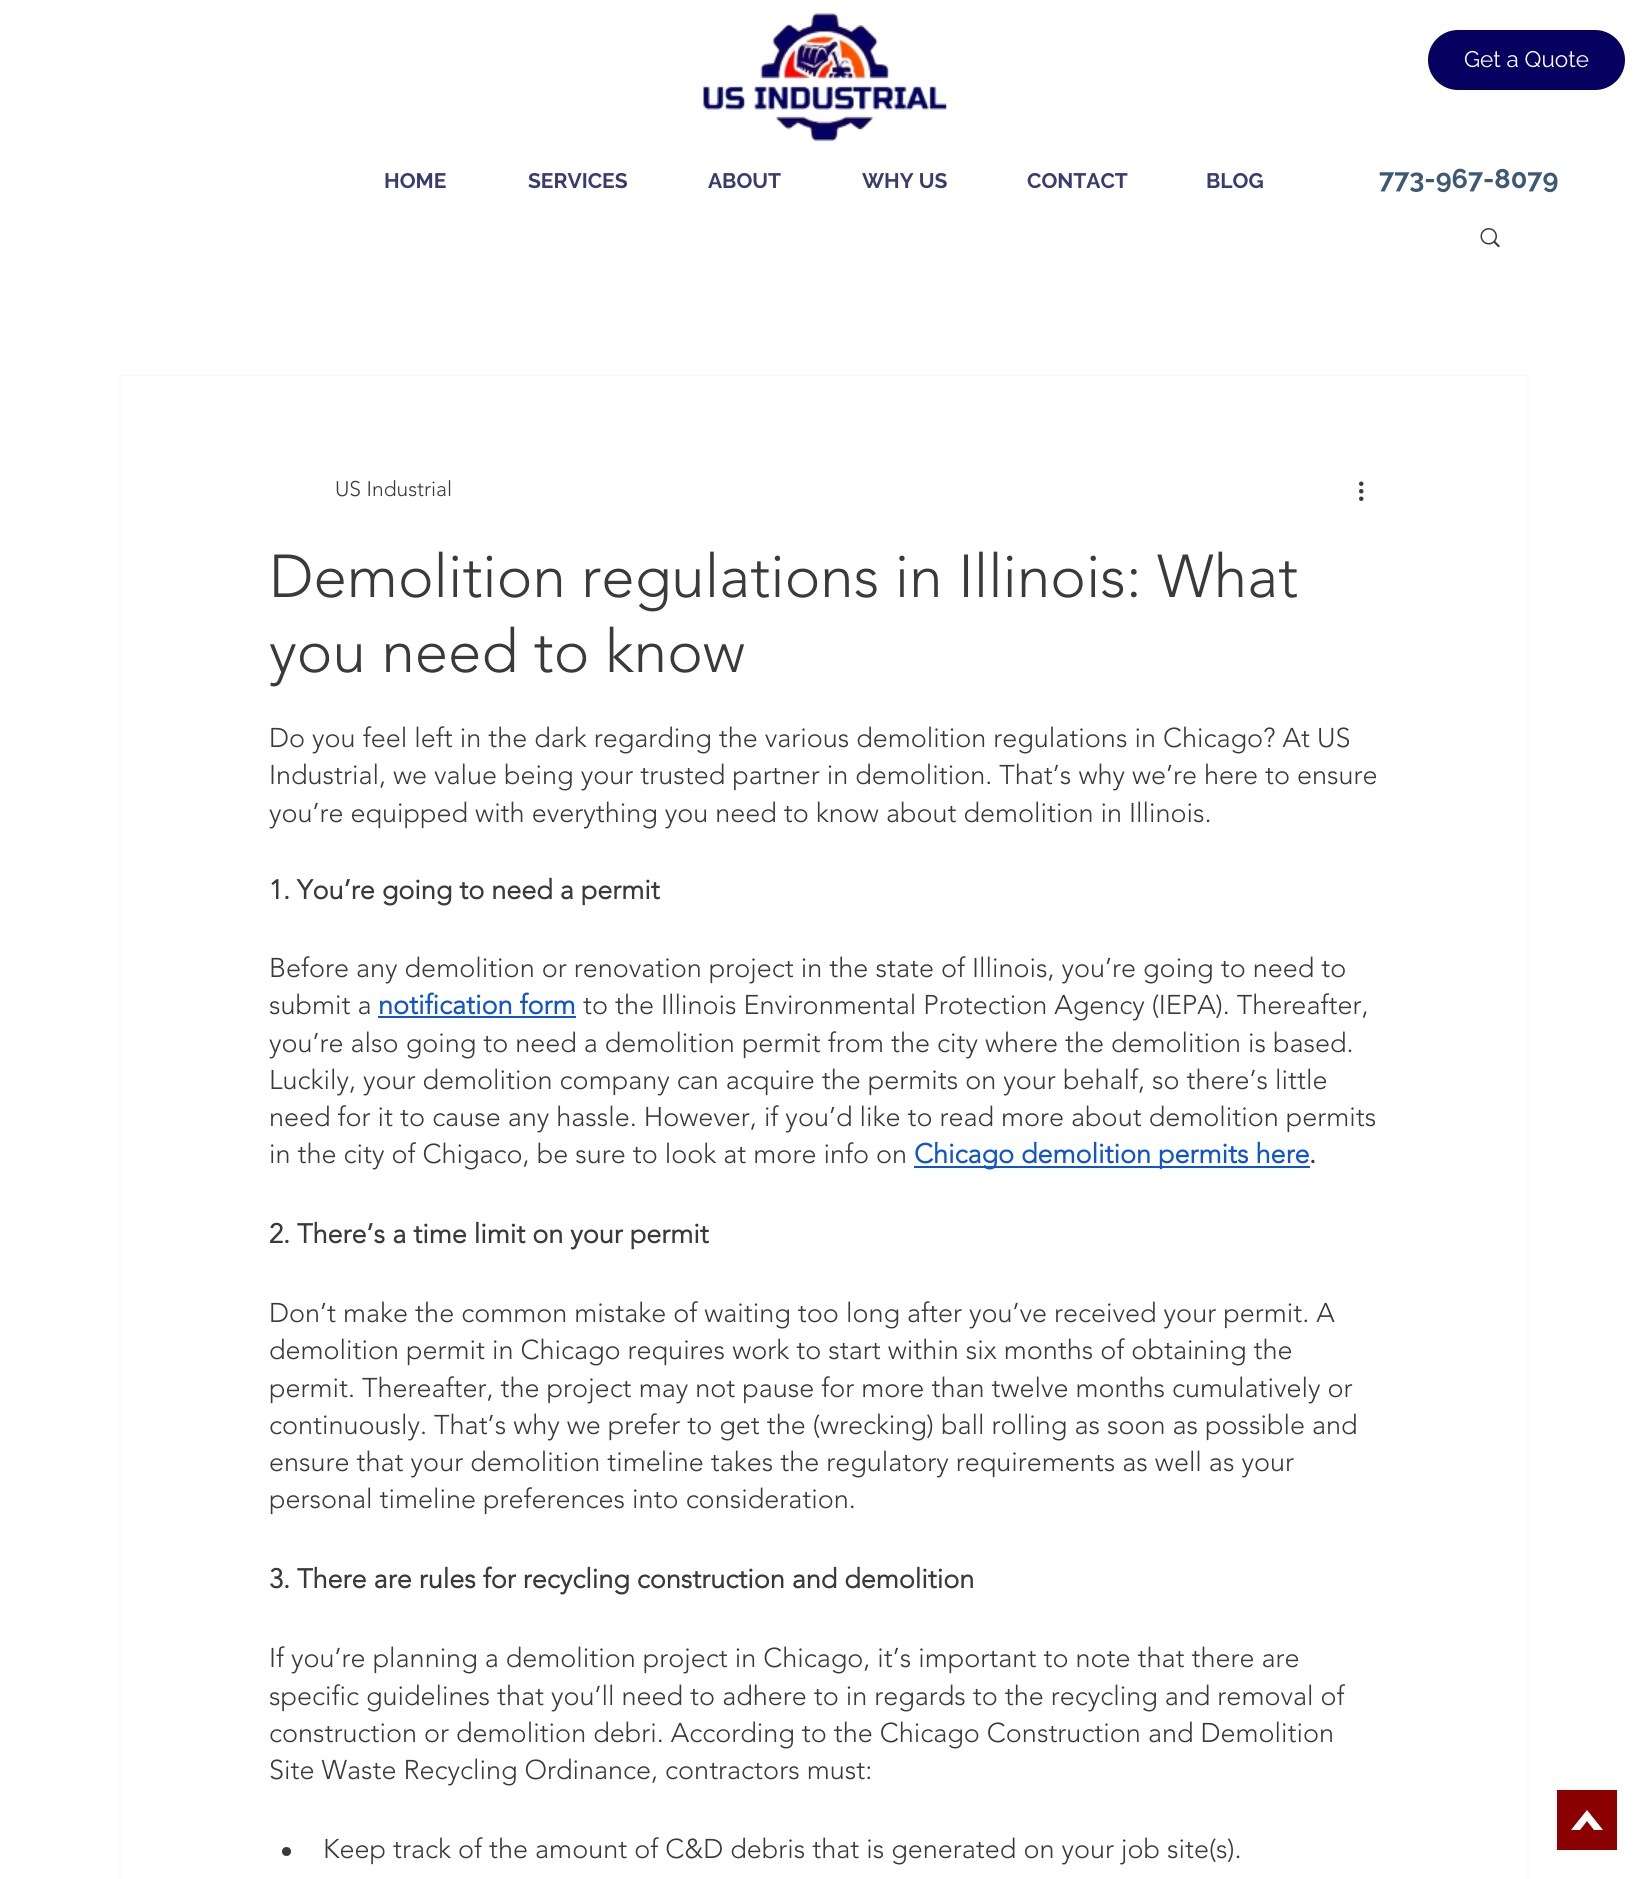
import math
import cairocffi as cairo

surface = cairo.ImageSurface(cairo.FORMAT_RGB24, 1646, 1879)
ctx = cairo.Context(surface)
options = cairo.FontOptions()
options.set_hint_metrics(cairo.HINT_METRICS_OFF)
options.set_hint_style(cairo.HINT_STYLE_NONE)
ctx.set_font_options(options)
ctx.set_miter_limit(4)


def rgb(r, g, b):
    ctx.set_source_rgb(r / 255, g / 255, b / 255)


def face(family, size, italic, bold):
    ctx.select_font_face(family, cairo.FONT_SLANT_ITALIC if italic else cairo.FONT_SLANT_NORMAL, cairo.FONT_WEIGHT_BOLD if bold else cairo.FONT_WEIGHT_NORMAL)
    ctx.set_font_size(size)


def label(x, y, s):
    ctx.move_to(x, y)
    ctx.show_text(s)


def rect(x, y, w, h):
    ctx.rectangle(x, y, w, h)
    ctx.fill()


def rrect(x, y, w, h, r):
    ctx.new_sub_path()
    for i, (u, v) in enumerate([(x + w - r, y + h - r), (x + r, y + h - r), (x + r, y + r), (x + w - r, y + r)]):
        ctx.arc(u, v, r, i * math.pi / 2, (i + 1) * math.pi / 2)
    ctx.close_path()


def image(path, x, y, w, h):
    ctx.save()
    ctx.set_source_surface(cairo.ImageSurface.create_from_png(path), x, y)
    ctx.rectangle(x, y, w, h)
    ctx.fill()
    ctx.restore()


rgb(255, 255, 255)
ctx.paint()
rgb(6, 0, 96)
rrect(1428, 30, 197, 60, 30)
ctx.fill()
face('Raleway', 22.5, 0, 0)
rgb(255, 255, 255)
label(1464, 67, 'Get a Quote')
image('image0.png', 702, 13, 245, 129)
face('Raleway', 21, 0, 1)
rgb(60, 59, 110)
label(384, 188, 'HOME')
label(528, 188, 'SERVICES')
label(708, 188, 'ABOUT')
label(862, 188, 'WHY US')
label(1027, 188, 'CONTACT')
label(1206, 188, 'BLOG')
face('Raleway', 27, 0, 1)
rgb(61, 89, 117)
label(1379, 188, '773-967-8079')
image('image1.png', 1480, 228, 20, 20)
ctx.rectangle(120, 375, 1408, 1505)
rgb(249, 249, 249)
ctx.stroke()
face('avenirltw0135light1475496 Light', 21, 0, 0)
rgb(59, 58, 58)
label(335, 496, 'US Industrial')
image('image2.png', 1359, 481, 5, 20)
face('avenirltw0135light1475496 Light', 60, 0, 0)
label(269, 597, 'Demolition regulations in Illinois: What')
label(269, 672, 'you need to know')
face('avenirltw0135light1475496 Light', 27, 0, 0)
label(269, 747, 'Do you feel left in the dark regarding the various demolition regulations in Chicago? At US')
label(269, 784, 'Industrial, we value being your trusted partner in demolition. That’s why we’re here to ensure')
label(269, 822, 'you’re equipped with everything you need to know about demolition in Illinois.')
face('avenirltw0135light1475496', 27, 0, 1)
label(269, 899, '1. You’re going to need a permit')
face('avenirltw0135light1475496 Light', 27, 0, 0)
label(269, 977, 'Before any demolition or renovation project in the state of Illinois, you’re going to need to')
label(269, 1014, 'submit a')
face('avenirltw0135light1475496', 27, 0, 1)
rgb(17, 85, 204)
label(378, 1014, 'notification form')
rect(378, 1016, 198, 2)
face('avenirltw0135light1475496 Light', 27, 0, 0)
rgb(59, 58, 58)
label(583, 1014, 'to the Illinois Environmental Protection Agency (IEPA). Thereafter,')
label(269, 1052, 'you’re also going to need a demolition permit from the city where the demolition is based.')
label(269, 1089, 'Luckily, your demolition company can acquire the permits on your behalf, so there’s little')
label(269, 1126, 'need for it to cause any hassle. However, if you’d like to read more about demolition permits')
label(269, 1163, 'in the city of Chigaco, be sure to look at more info on')
rgb(17, 85, 204)
rect(914, 1166, 396, 2)
face('avenirltw0135light1475496', 27, 0, 1)
label(914, 1163, 'Chicago demolition permits here')
rgb(59, 58, 58)
label(1309, 1163, '.')
label(269, 1243, '2. There’s a time limit on your permit')
face('avenirltw0135light1475496 Light', 27, 0, 0)
label(269, 1322, 'Don’t make the common mistake of waiting too long after you’ve received your permit. A')
label(269, 1359, 'demolition permit in Chicago requires work to start within six months of obtaining the')
label(269, 1397, 'permit. Thereafter, the project may not pause for more than twelve months cumulatively or')
label(269, 1434, 'continuously. That’s why we prefer to get the (wrecking) ball rolling as soon as possible and')
label(269, 1471, 'ensure that your demolition timeline takes the regulatory requirements as well as your')
label(269, 1508, 'personal timeline preferences into consideration.')
face('avenirltw0135light1475496', 27, 0, 1)
label(269, 1588, '3. There are rules for recycling construction and demolition')
face('avenirltw0135light1475496 Light', 27, 0, 0)
label(269, 1667, 'If you’re planning a demolition project in Chicago, it’s important to note that there are')
label(269, 1705, 'specific guidelines that you’ll need to adhere to in regards to the recycling and removal of')
label(269, 1742, 'construction or demolition debri. According to the Chicago Construction and Demolition')
label(269, 1779, 'Site Waste Recycling Ordinance, contractors must:')
ctx.new_path()
ctx.arc(286.5, 1851.5, 4.5, 0, 2 * math.pi)
ctx.fill()
label(323, 1858, 'Keep track of the amount of C&D debris that is generated on your job site(s).')
rgb(139, 0, 0)
ctx.new_path()
ctx.move_to(1557, 1790)
ctx.line_to(1557, 1850)
ctx.line_to(1617, 1850)
ctx.line_to(1617, 1790)
ctx.close_path()
ctx.move_to(1594, 1830)
ctx.line_to(1587, 1821)
ctx.line_to(1580, 1830)
ctx.line_to(1571, 1830)
ctx.line_to(1587, 1810)
ctx.line_to(1603, 1830)
ctx.close_path()
ctx.fill()
surface.write_to_png('render.png')
